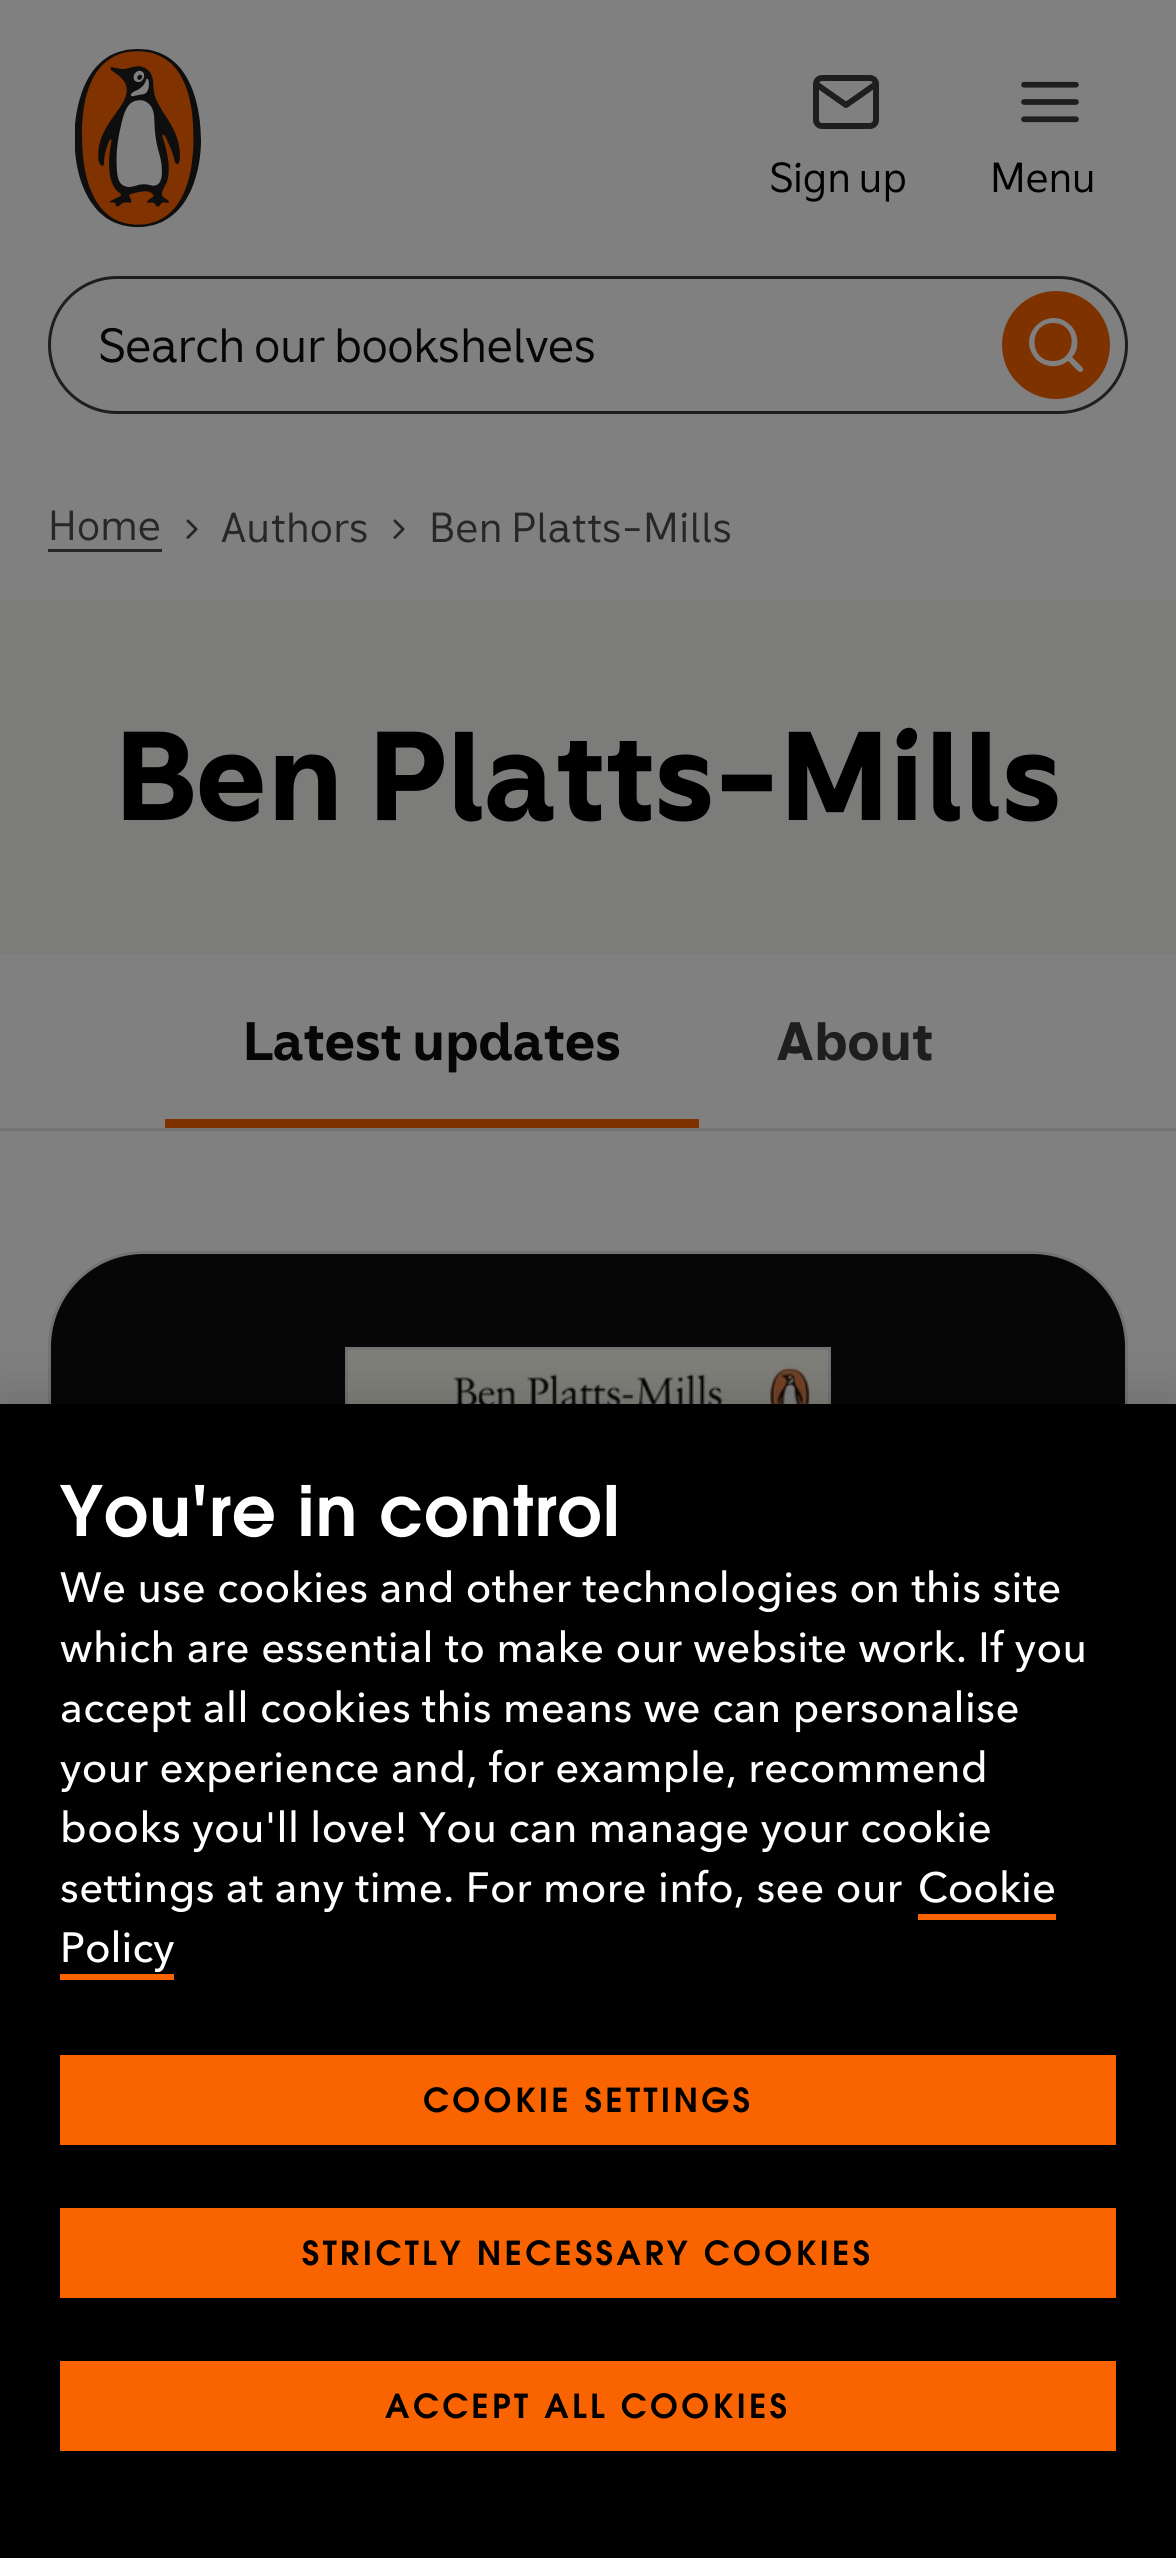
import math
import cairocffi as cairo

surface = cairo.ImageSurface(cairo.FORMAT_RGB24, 1176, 2558)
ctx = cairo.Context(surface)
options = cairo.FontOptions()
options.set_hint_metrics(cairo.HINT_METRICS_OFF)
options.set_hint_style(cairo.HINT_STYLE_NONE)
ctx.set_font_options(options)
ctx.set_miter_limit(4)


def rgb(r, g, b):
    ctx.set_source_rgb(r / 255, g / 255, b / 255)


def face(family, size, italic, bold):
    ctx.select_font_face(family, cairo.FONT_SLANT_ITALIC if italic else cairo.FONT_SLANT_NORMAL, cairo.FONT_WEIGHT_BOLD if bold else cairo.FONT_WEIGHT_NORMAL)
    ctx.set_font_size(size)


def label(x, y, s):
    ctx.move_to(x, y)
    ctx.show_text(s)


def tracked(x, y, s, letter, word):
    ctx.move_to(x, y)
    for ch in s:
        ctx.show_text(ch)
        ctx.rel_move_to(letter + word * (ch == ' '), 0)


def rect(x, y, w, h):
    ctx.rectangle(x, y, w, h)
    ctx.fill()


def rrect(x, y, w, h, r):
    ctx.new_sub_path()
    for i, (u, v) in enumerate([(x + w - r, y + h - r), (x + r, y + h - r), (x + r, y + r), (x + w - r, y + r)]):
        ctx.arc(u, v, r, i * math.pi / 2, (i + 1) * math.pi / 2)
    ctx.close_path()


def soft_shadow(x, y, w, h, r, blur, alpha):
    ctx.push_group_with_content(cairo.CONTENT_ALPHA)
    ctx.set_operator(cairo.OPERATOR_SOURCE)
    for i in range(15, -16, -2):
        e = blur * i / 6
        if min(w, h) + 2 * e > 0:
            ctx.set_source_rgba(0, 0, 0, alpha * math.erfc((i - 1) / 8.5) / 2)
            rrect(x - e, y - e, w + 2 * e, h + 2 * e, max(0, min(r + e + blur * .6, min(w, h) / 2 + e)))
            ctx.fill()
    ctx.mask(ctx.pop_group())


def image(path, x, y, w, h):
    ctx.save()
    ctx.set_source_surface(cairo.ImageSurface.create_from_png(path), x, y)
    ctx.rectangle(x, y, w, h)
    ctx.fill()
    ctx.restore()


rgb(128, 128, 128)
ctx.paint()
image('image0.png', 75, 49, 126, 179)
image('image1.png', 813, 75, 66, 54)
face('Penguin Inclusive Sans', 42, 0, 0)
rgb(0, 0, 0)
label(770, 192, 'Sign up')
image('image2.png', 1021, 81, 58, 42)
label(990, 192, 'Menu')
rrect(49.5, 277.5, 1077, 135, 67.5)
rgb(30, 30, 30)
ctx.set_line_width(3)
ctx.stroke()
face('Penguin Inclusive Sans', 48, 0, 0)
rgb(6, 6, 6)
label(99, 362, 'Search our bookshelves')
rgb(125, 50, 0)
ctx.new_path()
ctx.arc(1056, 345, 54, 0, 2 * math.pi)
ctx.fill()
rgb(128, 128, 128)
ctx.set_fill_rule(cairo.FILL_RULE_EVEN_ODD)
ctx.new_path()
ctx.move_to(1053, 323)
ctx.curve_to(1029, 323, 1028, 360, 1052, 361)
ctx.curve_to(1077, 362, 1079, 323, 1053, 323)
ctx.move_to(1072, 357)
ctx.curve_to(1077, 352, 1078, 345, 1077, 338)
ctx.curve_to(1076, 333, 1074, 328, 1069, 324)
ctx.curve_to(1049, 306, 1018, 332, 1033, 355)
ctx.curve_to(1040, 367, 1057, 370, 1068, 361)
ctx.curve_to(1071, 363, 1078, 373, 1081, 372)
ctx.curve_to(1083, 371, 1084, 369, 1082, 367)
ctx.close_path()
ctx.fill()
rgb(39, 39, 39)
rect(48, 549, 114, 3)
face('Penguin Inclusive Sans', 42, 0, 0)
tracked(48, 540, 'Home', 0.5, 0)
image('image3.png', 186, 519, 12, 20)
tracked(221, 542, 'Authors', 0.5, 0)
image('image3.png', 393, 519, 12, 20)
tracked(429, 542, 'Ben Platts-Mills', 0.5, 0)
rgb(124, 124, 123)
rect(0, 600, 1176, 354)
face('Penguin Inclusive Sans', 126, 0, 1)
rgb(0, 0, 0)
label(115, 820, 'Ben Platts-Mills')
rgb(115, 115, 112)
rect(0, 1128, 1176, 3)
face('Penguin Inclusive Sans', 54, 0, 1)
rgb(6, 6, 6)
label(243, 1060, 'Latest updates')
rgb(125, 50, 0)
rect(165, 1119, 534, 9)
rgb(30, 30, 30)
label(776, 1060, 'About')
rgb(6, 6, 6)
rrect(49.5, 1252.5, 1077, 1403, 94.5)
ctx.fill_preserve()
rgb(115, 115, 112)
ctx.stroke()
image('image4.png', 345, 1347, 486, 57)
rgb(0, 0, 0)
soft_shadow(0, 1404, 1176, 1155, 0, 27, 0.2)
rgb(0, 0, 0)
rect(0, 1404, 1176, 1154)
face('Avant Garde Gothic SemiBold', 69, 0, 0)
rgb(255, 255, 255)
tracked(60, 1536, 'You\'re in control', 1.25, 0)
face('Avenir Next Medium', 42, 0, 0)
tracked(60, 1602, 'We use cookies and other technologies on this site', 0.5, 0)
tracked(60, 1662, 'which are essential to make our website work. If you', 0.5, 0)
tracked(60, 1722, 'accept all cookies this means we can personalise', 0.5, 0)
tracked(60, 1782, 'your experience and, for example, recommend', 0.5, 0)
tracked(60, 1842, 'books you\'ll love! You can manage your cookie', 0.5, 0)
tracked(60, 1902, 'settings at any time. For more info, see our', 0.5, 0)
label(918, 1902, 'Cookie')
rgb(250, 100, 0)
rect(918, 1914, 138, 6)
rgb(255, 255, 255)
label(60, 1962, 'Policy')
rgb(250, 100, 0)
rect(60, 1974, 114, 6)
rect(60, 2055, 1056, 90)
face('Avant Garde Gothic SemiBold', 33, 0, 0)
rgb(0, 0, 0)
tracked(423, 2112, 'COOKIE SETTINGS', 3.5, 0)
rgb(250, 100, 0)
rect(60, 2208, 1056, 90)
rgb(0, 0, 0)
tracked(302, 2265, 'STRICTLY NECESSARY COOKIES', 3.5, 0)
rgb(250, 100, 0)
rect(60, 2361, 1056, 90)
rgb(0, 0, 0)
tracked(385, 2418, 'ACCEPT ALL COOKIES', 3.5, 0)
surface.write_to_png('render.png')
